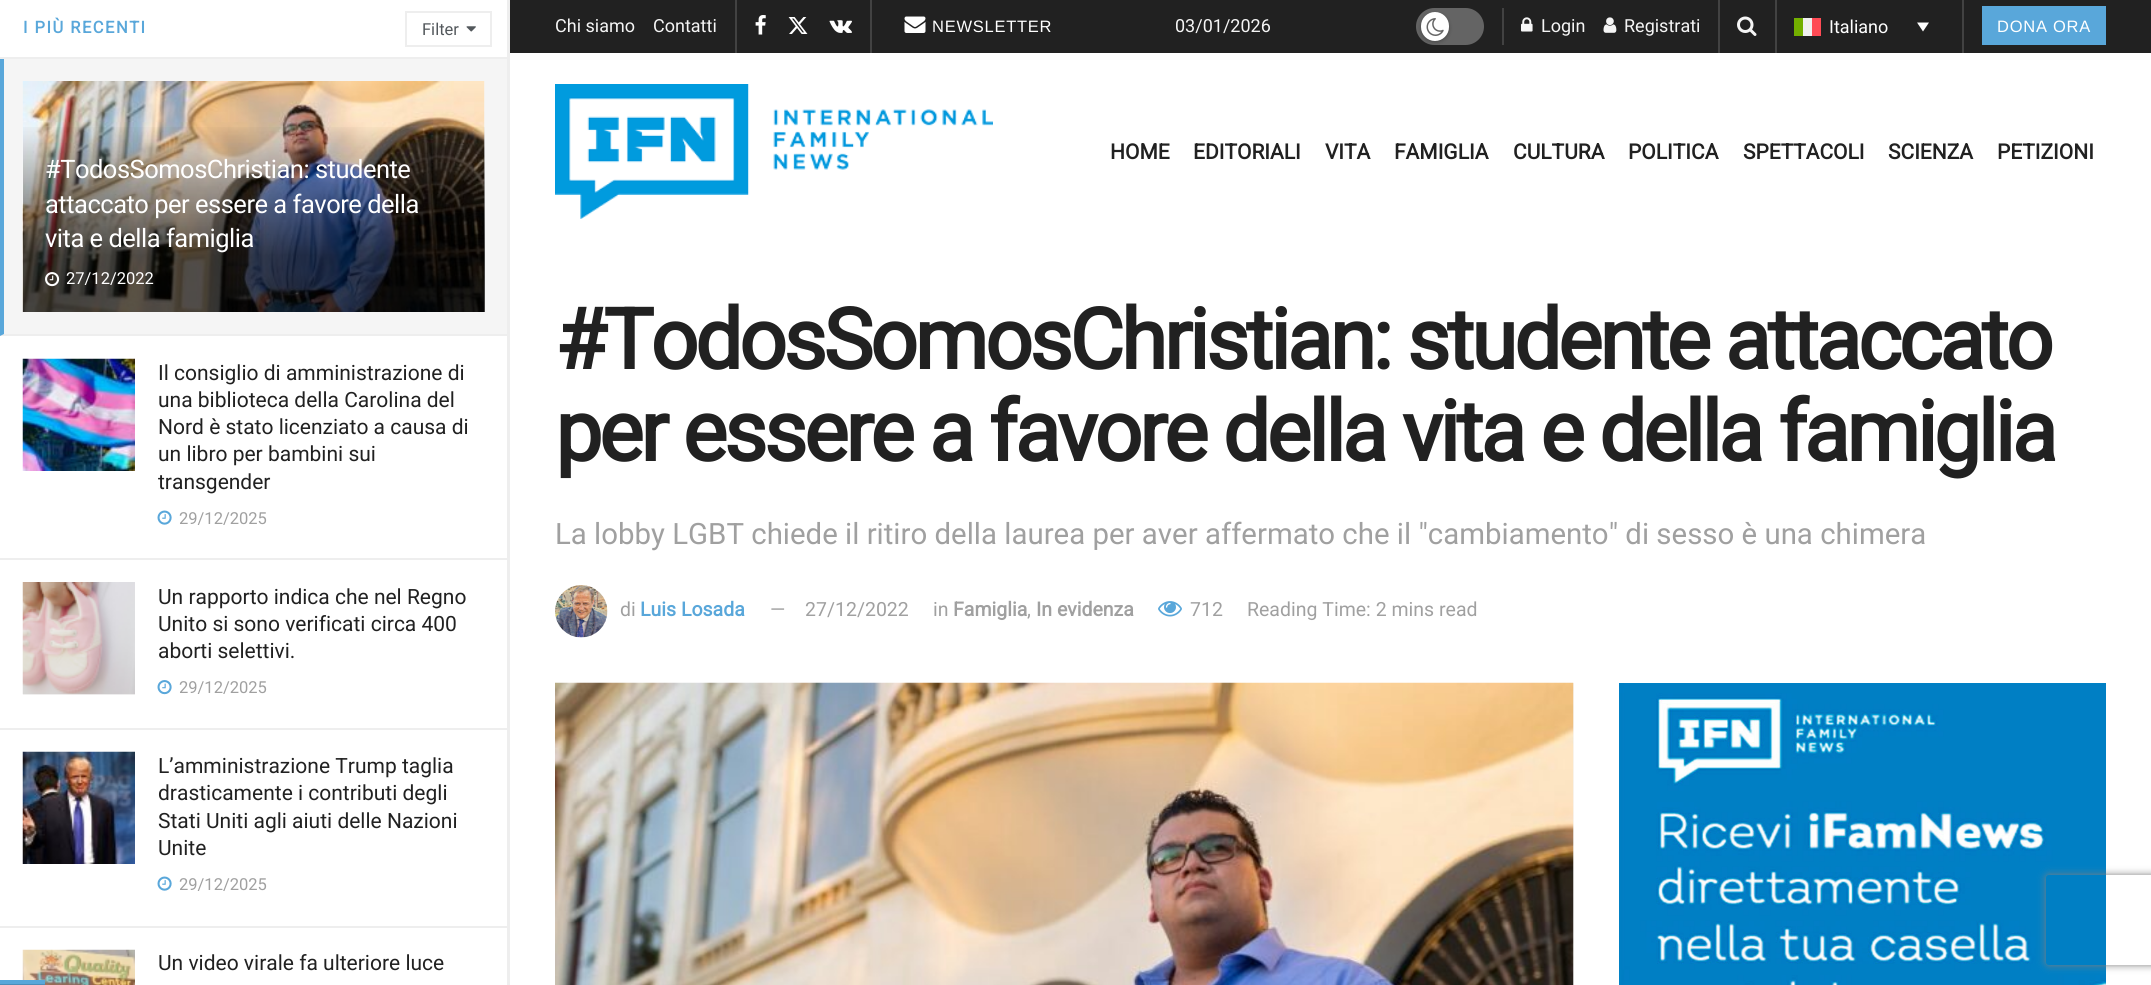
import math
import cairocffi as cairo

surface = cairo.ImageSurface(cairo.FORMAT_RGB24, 2151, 985)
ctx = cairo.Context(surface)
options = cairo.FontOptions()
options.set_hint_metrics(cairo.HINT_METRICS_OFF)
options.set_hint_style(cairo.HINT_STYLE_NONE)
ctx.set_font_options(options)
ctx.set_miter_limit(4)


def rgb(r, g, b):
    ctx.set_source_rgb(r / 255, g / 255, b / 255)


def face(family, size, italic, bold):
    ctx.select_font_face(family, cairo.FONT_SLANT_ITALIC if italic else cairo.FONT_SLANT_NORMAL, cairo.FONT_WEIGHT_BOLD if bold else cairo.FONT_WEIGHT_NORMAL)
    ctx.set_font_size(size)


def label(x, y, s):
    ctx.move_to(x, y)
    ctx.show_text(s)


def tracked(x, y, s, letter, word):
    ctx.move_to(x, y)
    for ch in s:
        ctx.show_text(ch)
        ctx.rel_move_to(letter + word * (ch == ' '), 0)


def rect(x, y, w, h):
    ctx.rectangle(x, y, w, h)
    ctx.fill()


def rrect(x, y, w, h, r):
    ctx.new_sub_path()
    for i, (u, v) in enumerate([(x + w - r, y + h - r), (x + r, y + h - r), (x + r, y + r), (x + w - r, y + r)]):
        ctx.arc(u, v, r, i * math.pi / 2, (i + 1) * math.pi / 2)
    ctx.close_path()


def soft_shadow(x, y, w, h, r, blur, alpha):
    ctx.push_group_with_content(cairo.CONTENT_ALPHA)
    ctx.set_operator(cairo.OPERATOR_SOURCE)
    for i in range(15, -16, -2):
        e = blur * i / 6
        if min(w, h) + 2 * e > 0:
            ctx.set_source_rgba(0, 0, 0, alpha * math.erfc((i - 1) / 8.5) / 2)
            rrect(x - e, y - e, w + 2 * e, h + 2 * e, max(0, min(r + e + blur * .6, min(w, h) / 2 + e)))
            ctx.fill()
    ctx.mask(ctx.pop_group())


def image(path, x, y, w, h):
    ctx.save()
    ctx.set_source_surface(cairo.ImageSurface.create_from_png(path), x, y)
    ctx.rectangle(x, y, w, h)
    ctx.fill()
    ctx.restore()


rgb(255, 255, 255)
ctx.paint()
rgb(238, 238, 238)
rect(507, 0, 3, 985)
rect(0, 57, 507, 2)
face('Roboto', 16.5, 0, 1)
rgb(89, 167, 218)
tracked(23, 33, 'I PIÙ RECENTI', 1.5, 0)
ctx.rectangle(406, 12, 85, 34)
rgb(238, 238, 238)
ctx.stroke()
face('Roboto', 16.5, 0, 0)
rgb(83, 88, 92)
label(422, 35, 'Filter')
image('image0.png', 466, 26, 10, 6)
rgb(245, 245, 245)
rect(0, 59, 507, 277)
rgb(238, 238, 238)
ctx.new_path()
ctx.move_to(507, 336)
ctx.line_to(0, 336)
ctx.line_to(4, 334)
ctx.line_to(507, 334)
ctx.close_path()
ctx.fill()
ctx.save()
ctx.rectangle(0, 59, 507, 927)
ctx.clip()
rgb(89, 167, 218)
ctx.new_path()
ctx.move_to(0, 336)
ctx.line_to(0, 58)
ctx.line_to(4, 58)
ctx.line_to(4, 334)
ctx.close_path()
ctx.fill()
ctx.restore()
image('image1.png', 22, 81, 463, 231)
gradient = cairo.LinearGradient(254, 123, 254, 312)
gradient.add_color_stop_rgba(0, 0, 0, 0, 0)
gradient.add_color_stop_rgba(0.7, 0, 0, 0, 0.65)
ctx.set_source(gradient)
rect(23, 127, 462, 185)
face('Roboto', 25.5, 0, 0)
rgb(255, 255, 255)
tracked(45, 178, '#TodosSomosChristian: studente', -0.5, 0)
tracked(45, 213, 'attaccato per essere a favore della', -0.5, 0)
tracked(45, 247, 'vita e della famiglia', -0.5, 0)
image('image2.png', 45, 272, 15, 15)
face('Roboto', 16.5, 0, 0)
label(66, 284, '27/12/2022')
rgb(238, 238, 238)
rect(0, 558, 507, 2)
image('image3.png', 22, 358, 113, 113)
face('Roboto', 21, 0, 0)
rgb(33, 33, 33)
label(158, 380, 'Il consiglio di amministrazione di')
label(158, 407, 'una biblioteca della Carolina del')
label(158, 434, 'Nord è stato licenziato a causa di')
label(158, 461, 'un libro per bambini sui')
label(158, 489, 'transgender')
image('image4.png', 157, 510, 15, 15)
face('Roboto', 16.5, 0, 0)
rgb(160, 160, 160)
label(179, 524, '29/12/2025')
rgb(238, 238, 238)
rect(0, 728, 507, 2)
rgb(247, 247, 247)
rect(23, 694, 112, 1)
image('image5.png', 22, 582, 113, 113)
face('Roboto', 21, 0, 0)
rgb(33, 33, 33)
label(158, 604, 'Un rapporto indica che nel Regno')
label(158, 631, 'Unito si sono verificati circa 400')
label(158, 658, 'aborti selettivi.')
image('image6.png', 157, 680, 15, 15)
face('Roboto', 16.5, 0, 0)
rgb(160, 160, 160)
label(179, 693, '29/12/2025')
rgb(238, 238, 238)
rect(0, 926, 507, 2)
image('image7.png', 22, 751, 113, 113)
face('Roboto', 21, 0, 0)
rgb(33, 33, 33)
label(158, 773, 'L’amministrazione Trump taglia')
label(158, 800, 'drasticamente i contributi degli')
label(158, 828, 'Stati Uniti agli aiuti delle Nazioni')
label(158, 855, 'Unite')
image('image4.png', 157, 876, 15, 15)
face('Roboto', 16.5, 0, 0)
rgb(160, 160, 160)
label(179, 890, '29/12/2025')
image('image8.png', 22, 949, 113, 36)
face('Roboto', 21, 0, 0)
rgb(33, 33, 33)
label(158, 970, 'Un video virale fa ulteriore luce')
rect(510, 0, 1641, 53)
rgb(66, 66, 66)
rect(870, 0, 2, 53)
rect(735, 0, 2, 53)
face('Roboto', 18, 0, 0)
rgb(245, 245, 245)
label(555, 32, 'Chi siamo')
label(653, 32, 'Contatti')
image('image9.png', 755, 15, 11, 20)
image('image10.png', 788, 17, 20, 17)
image('image11.png', 829, 20, 23, 13)
image('image12.png', 904, 16, 22, 17)
face('Liberation Sans', 16.5, 0, 0)
rgb(255, 255, 255)
tracked(932, 32, 'NEWSLETTER', 0.75, 0)
face('Roboto', 18, 0, 0)
rgb(245, 245, 245)
label(1175, 32, '03/01/2026')
rgb(66, 66, 66)
rect(1502, 8, 2, 37)
rgb(100, 100, 100)
rrect(1416, 8, 68, 37, 18.5)
ctx.fill()
rgb(0, 0, 0)
soft_shadow(1421, 14, 28, 28, 14, 2, 0.3)
rgb(255, 255, 255)
rrect(1421, 12, 28, 29, 14)
ctx.fill()
image('image13.png', 1426, 18, 18, 18)
rgb(66, 66, 66)
rect(1718, 0, 2, 53)
image('image14.png', 1521, 17, 12, 15)
rgb(245, 245, 245)
label(1541, 32, 'Login')
image('image15.png', 1603, 17, 14, 16)
label(1624, 32, 'Registrati')
rgb(66, 66, 66)
rect(1775, 0, 2, 53)
image('image16.png', 1737, 16, 20, 20)
rect(1962, 0, 2, 53)
rgb(115, 175, 0)
rect(1794, 18, 9, 18)
rgb(240, 240, 240)
rect(1803, 18, 9, 18)
rgb(255, 75, 85)
rect(1812, 18, 9, 18)
rgb(255, 255, 255)
label(1829, 33, 'Italiano')
ctx.new_path()
ctx.move_to(1917, 22.5)
ctx.line_to(1929, 22.5)
ctx.line_to(1923, 31.5)
ctx.close_path()
ctx.fill()
rgb(89, 167, 218)
rect(1982, 6, 124, 39)
face('Liberation Sans', 16.5, 0, 0)
rgb(255, 255, 255)
tracked(1997, 32, 'DONA ORA', 0.75, 0)
image('image17.png', 555, 84, 438, 135)
face('Roboto', 21, 0, 1)
rgb(33, 33, 33)
label(1110, 159, 'HOME')
label(1193, 159, 'EDITORIALI')
label(1325, 159, 'VITA')
label(1394, 159, 'FAMIGLIA')
label(1513, 159, 'CULTURA')
label(1628, 159, 'POLITICA')
label(1743, 159, 'SPETTACOLI')
label(1888, 159, 'SCIENZA')
label(1997, 159, 'PETIZIONI')
face('Roboto', 84, 0, 1)
tracked(555, 369, '#TodosSomosChristian: studente attaccato', -3.35, 0)
tracked(555, 461, 'per essere a favore della vita e della famiglia', -3.35, 0)
face('Roboto', 29.4, 0, 0)
rgb(160, 160, 160)
label(555, 544, 'La lobby LGBT chiede il ritiro della laurea per aver affermato che il "cambiamento" di sesso è una chimera')
image('image18.png', 555, 585, 53, 53)
face('Roboto', 19.5, 0, 0)
label(620, 616, 'di')
face('Roboto', 19.5, 0, 1)
rgb(89, 167, 218)
label(640, 616, 'Luis Losada')
face('Roboto', 19.5, 0, 0)
rgb(160, 160, 160)
label(770, 616, '—')
label(805, 616, '27/12/2022')
label(933, 616, 'in')
face('Roboto', 19.5, 0, 1)
label(953, 616, 'Famiglia')
face('Roboto', 19.5, 0, 0)
label(1027, 616, ',')
face('Roboto', 19.5, 0, 1)
label(1036, 616, 'In evidenza')
image('image19.png', 1158, 601, 24, 16)
face('Roboto', 19.5, 0, 0)
label(1190, 616, '712')
label(1247, 616, 'Reading Time: 2 mins read')
rgb(247, 247, 247)
rect(1573, 683, 1, 302)
image('image20.png', 555, 682, 1019, 303)
image('image21.png', 1619, 683, 487, 302)
ctx.save()
ctx.set_fill_rule(cairo.FILL_RULE_EVEN_ODD)
ctx.new_path()
ctx.move_to(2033, 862)
ctx.line_to(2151, 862)
ctx.line_to(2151, 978)
ctx.line_to(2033, 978)
ctx.close_path()
ctx.move_to(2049, 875)
ctx.line_to(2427, 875)
ctx.curve_to(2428.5, 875, 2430, 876.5, 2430, 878)
ctx.line_to(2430, 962)
ctx.curve_to(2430, 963.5, 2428.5, 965, 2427, 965)
ctx.line_to(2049, 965)
ctx.curve_to(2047.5, 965, 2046, 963.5, 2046, 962)
ctx.line_to(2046, 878)
ctx.curve_to(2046, 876.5, 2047.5, 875, 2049, 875)
ctx.close_path()
ctx.clip()
rgb(128, 128, 128)
soft_shadow(2046, 875, 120, 90, 3, 4, 1)
ctx.restore()
rgb(89, 167, 218)
rect(0, 980, 45, 4)
rgb(76, 142, 185)
rect(0, 984, 45, 1)
surface.write_to_png('render.png')
